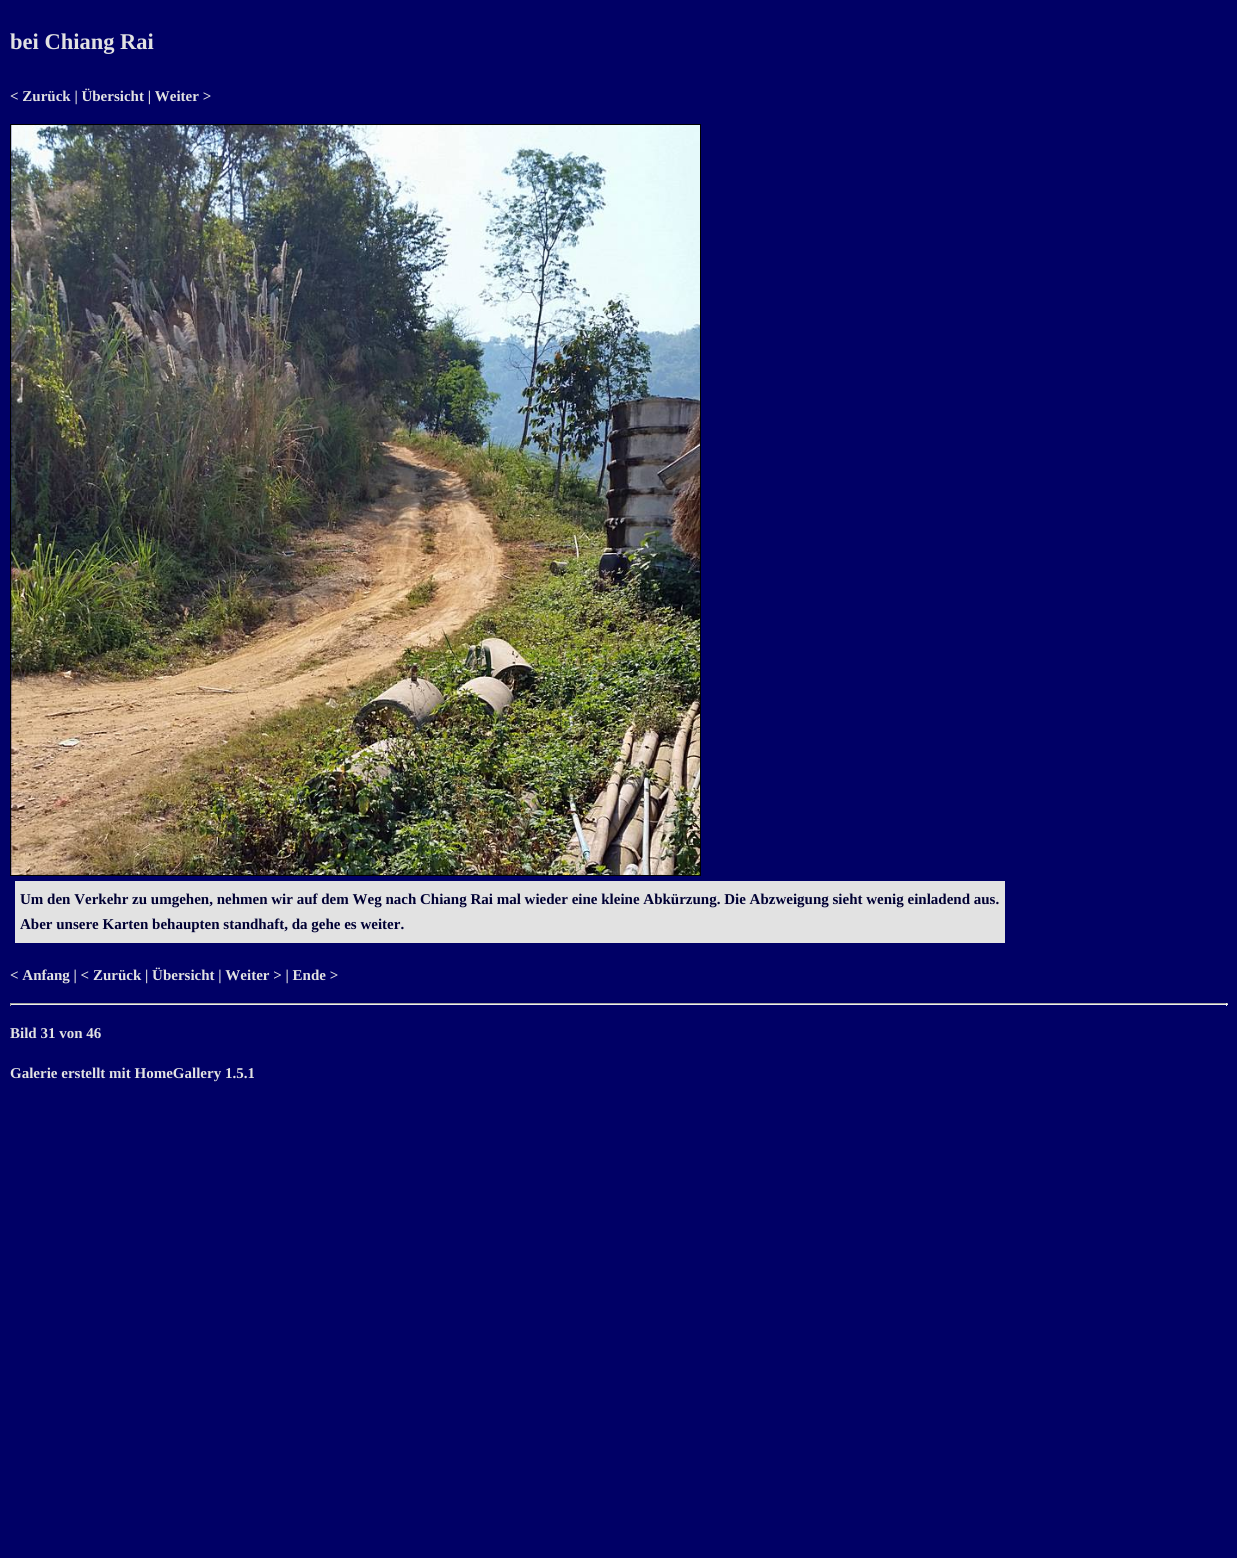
import math
import cairocffi as cairo

surface = cairo.ImageSurface(cairo.FORMAT_RGB24, 1237, 1558)
ctx = cairo.Context(surface)
options = cairo.FontOptions()
options.set_hint_metrics(cairo.HINT_METRICS_OFF)
options.set_hint_style(cairo.HINT_STYLE_NONE)
ctx.set_font_options(options)
ctx.set_miter_limit(4)


def rgb(r, g, b):
    ctx.set_source_rgb(r / 255, g / 255, b / 255)


def face(family, size, italic, bold):
    ctx.select_font_face(family, cairo.FONT_SLANT_ITALIC if italic else cairo.FONT_SLANT_NORMAL, cairo.FONT_WEIGHT_BOLD if bold else cairo.FONT_WEIGHT_NORMAL)
    ctx.set_font_size(size)


def label(x, y, s):
    ctx.move_to(x, y)
    ctx.show_text(s)


def rect(x, y, w, h):
    ctx.rectangle(x, y, w, h)
    ctx.fill()


def image(path, x, y, w, h):
    ctx.save()
    ctx.set_source_surface(cairo.ImageSurface.create_from_png(path), x, y)
    ctx.rectangle(x, y, w, h)
    ctx.fill()
    ctx.restore()


rgb(0, 0, 102)
ctx.paint()
face('Liberation Serif', 22.5, 0, 1)
rgb(226, 226, 226)
label(10, 49, 'bei Chiang Rai')
face('Liberation Serif', 15, 0, 1)
label(10, 101, '< Zurück | Übersicht | Weiter >')
ctx.rectangle(10.5, 124.5, 690, 751)
rgb(0, 0, 0)
ctx.set_line_width(1)
ctx.stroke()
image('image0.png', 11, 125, 689, 750)
rgb(226, 226, 226)
rect(15, 881, 990, 62)
rgb(0, 0, 51)
label(20, 904, 'Um den Verkehr zu umgehen, nehmen wir auf dem Weg nach Chiang Rai mal wieder eine kleine Abkürzung. Die Abzweigung sieht wenig einladend aus.')
label(20, 929, 'Aber unsere Karten behaupten standhaft, da gehe es weiter.')
rgb(226, 226, 226)
label(10, 980, '< Anfang | < Zurück | Übersicht | Weiter > | Ende >')
rgb(159, 159, 159)
rect(10, 1003, 1218, 1)
rgb(238, 238, 238)
rect(1226, 1003, 1, 3)
rect(10, 1004, 1218, 1)
rgb(159, 159, 159)
rect(10, 1003, 1, 3)
rgb(226, 226, 226)
label(10, 1038, 'Bild 31 von 46')
label(10, 1078, 'Galerie erstellt mit HomeGallery 1.5.1')
surface.write_to_png('render.png')
